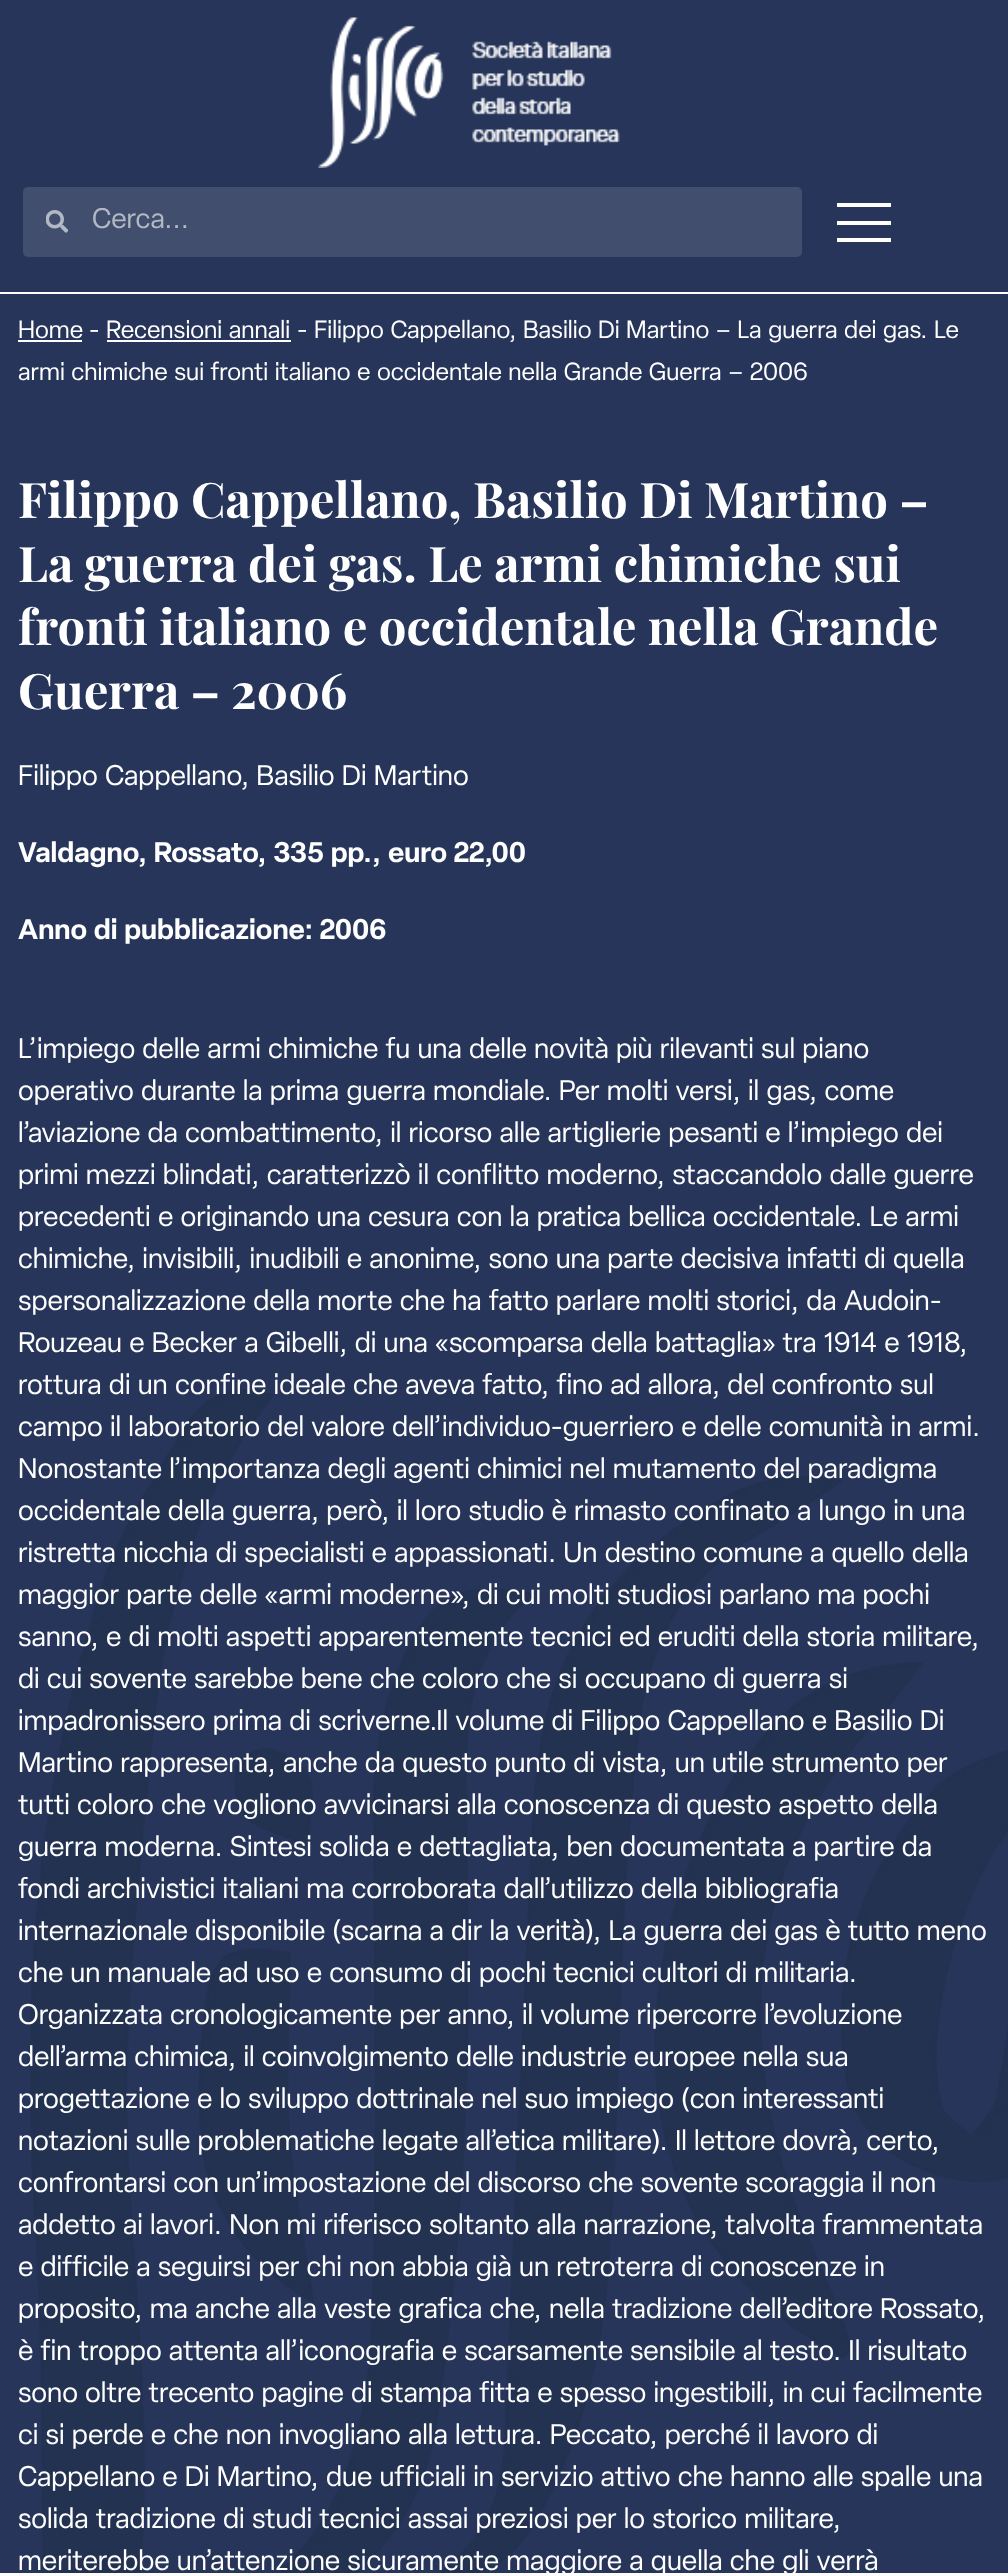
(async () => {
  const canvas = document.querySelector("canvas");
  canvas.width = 1008;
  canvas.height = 2573;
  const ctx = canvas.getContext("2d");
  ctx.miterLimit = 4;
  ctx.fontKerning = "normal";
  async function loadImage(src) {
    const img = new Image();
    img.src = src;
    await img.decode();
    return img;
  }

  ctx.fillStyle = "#263559";
  ctx.fillRect(0, 0, 1008, 2573);
  ctx.drawImage(await loadImage("img/1.png"), 30, 1389, 978, 1184);
  ctx.fillStyle = "#ffffff";
  ctx.fillRect(0, 292, 1008, 2);
  ctx.drawImage(await loadImage("img/2.png"), 318, 17, 302, 151);
  ctx.fillStyle = "#414e6e";
  ctx.beginPath();
  ctx.roundRect(23, 187, 779, 70, 5);
  ctx.fill();
  ctx.drawImage(await loadImage("img/3.png"), 46, 210, 22, 23);
  for (const [x, y, w, h, color] of [
    [837, 221, 54, 4, "#ffffff"],
    [837, 203, 54, 4, "#ffffff"],
    [837, 238, 54, 4, "#ffffff"],
    [18, 340, 64, 2, "#ffffff"],
    [107, 340, 184, 2, "#ffffff"],
  ]) {
    ctx.fillStyle = color;
    ctx.fillRect(x, y, w, h);
  }
  ctx.save();
  ctx.beginPath();
  ctx.rect(91, 208, 660, 28);
  ctx.clip();
  ctx.font = "28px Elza";
  ctx.fillStyle = "#b3b8c5";
  ctx.fillText("Cerca...", 92, 228);
  ctx.restore();
  ctx.font = "24.5px Elza";
  ctx.fillText("Home", 18, 338);
  ctx.fillText("-", 89, 338);
  ctx.wordSpacing = "1.75px";
  ctx.fillText("Recensioni annali", 106, 338);
  ctx.wordSpacing = "0px";
  ctx.fillText("-", 297, 338);
  ctx.wordSpacing = "1.75px";
  ctx.fillText("Filippo Cappellano, Basilio Di Martino – La guerra dei gas. Le", 314, 338);
  ctx.fillText("armi chimiche sui fronti italiano e occidentale nella Grande Guerra – 2006", 18, 380);
  ctx.wordSpacing = "0px";
  ctx.font = "bold 49px Playfair Display";
  for (const [text, x, y] of [
    ["Filippo Cappellano, Basilio Di Martino –", 18, 518],
    ["La guerra dei gas. Le armi chimiche sui", 18, 582],
    ["fronti italiano e occidentale nella Grande", 18, 645],
    ["Guerra – 2006", 18, 709],
  ]) {
    ctx.fillText(text, x, y);
  }
  ctx.wordSpacing = "1.75px";
  ctx.font = "28px Elza";
  ctx.fillText("Filippo Cappellano, Basilio Di Martino", 18, 785);
  ctx.font = "600 28px Elza";
  ctx.fillText("Valdagno, Rossato, 335 pp., euro 22,00", 18, 862);
  ctx.fillText("Anno di pubblicazione: 2006", 18, 939);
  ctx.font = "28px Elza";
  for (const [text, x, y] of [
    ["L’impiego delle armi chimiche fu una delle novità più rilevanti sul piano", 18, 1058],
    ["operativo durante la prima guerra mondiale. Per molti versi, il gas, come", 18, 1100],
    ["l’aviazione da combattimento, il ricorso alle artiglierie pesanti e l’impiego dei", 18, 1142],
    ["primi mezzi blindati, caratterizzò il conflitto moderno, staccandolo dalle guerre", 18, 1184],
    ["precedenti e originando una cesura con la pratica bellica occidentale. Le armi", 18, 1226],
    ["chimiche, invisibili, inudibili e anonime, sono una parte decisiva infatti di quella", 18, 1268],
    ["spersonalizzazione della morte che ha fatto parlare molti storici, da Audoin-", 18, 1310],
    ["Rouzeau e Becker a Gibelli, di una «scomparsa della battaglia» tra 1914 e 1918,", 18, 1352],
    ["rottura di un confine ideale che aveva fatto, fino ad allora, del confronto sul", 18, 1394],
    ["campo il laboratorio del valore dell’individuo-guerriero e delle comunità in armi.", 18, 1436],
    ["Nonostante l’importanza degli agenti chimici nel mutamento del paradigma", 18, 1478],
    ["occidentale della guerra, però, il loro studio è rimasto confinato a lungo in una", 18, 1520],
    ["ristretta nicchia di specialisti e appassionati. Un destino comune a quello della", 18, 1562],
    ["maggior parte delle «armi moderne», di cui molti studiosi parlano ma pochi", 18, 1604],
    ["sanno, e di molti aspetti apparentemente tecnici ed eruditi della storia militare,", 18, 1646],
    ["di cui sovente sarebbe bene che coloro che si occupano di guerra si", 18, 1688],
    ["impadronissero prima di scriverne.Il volume di Filippo Cappellano e Basilio Di", 18, 1730],
    ["Martino rappresenta, anche da questo punto di vista, un utile strumento per", 18, 1772],
    ["tutti coloro che vogliono avvicinarsi alla conoscenza di questo aspetto della", 18, 1814],
    ["guerra moderna. Sintesi solida e dettagliata, ben documentata a partire da", 18, 1856],
    ["fondi archivistici italiani ma corroborata dall’utilizzo della bibliografia", 18, 1898],
    ["internazionale disponibile (scarna a dir la verità), La guerra dei gas è tutto meno", 18, 1940],
    ["che un manuale ad uso e consumo di pochi tecnici cultori di militaria.", 18, 1982],
    ["Organizzata cronologicamente per anno, il volume ripercorre l’evoluzione", 18, 2024],
    ["dell’arma chimica, il coinvolgimento delle industrie europee nella sua", 18, 2066],
    ["progettazione e lo sviluppo dottrinale nel suo impiego (con interessanti", 18, 2108],
    ["notazioni sulle problematiche legate all’etica militare). Il lettore dovrà, certo,", 18, 2150],
    ["confrontarsi con un’impostazione del discorso che sovente scoraggia il non", 18, 2192],
    ["addetto ai lavori. Non mi riferisco soltanto alla narrazione, talvolta frammentata", 18, 2234],
    ["e difficile a seguirsi per chi non abbia già un retroterra di conoscenze in", 18, 2276],
    ["proposito, ma anche alla veste grafica che, nella tradizione dell’editore Rossato,", 18, 2318],
    ["è fin troppo attenta all’iconografia e scarsamente sensibile al testo. Il risultato", 18, 2360],
    ["sono oltre trecento pagine di stampa fitta e spesso ingestibili, in cui facilmente", 18, 2402],
    ["ci si perde e che non invogliano alla lettura. Peccato, perché il lavoro di", 18, 2444],
    ["Cappellano e Di Martino, due ufficiali in servizio attivo che hanno alle spalle una", 18, 2486],
    ["solida tradizione di studi tecnici assai preziosi per lo storico militare,", 18, 2528],
    ["meriterebbe un’attenzione sicuramente maggiore a quella che gli verrà", 18, 2570],
  ]) {
    ctx.fillText(text, x, y);
  }
})();
